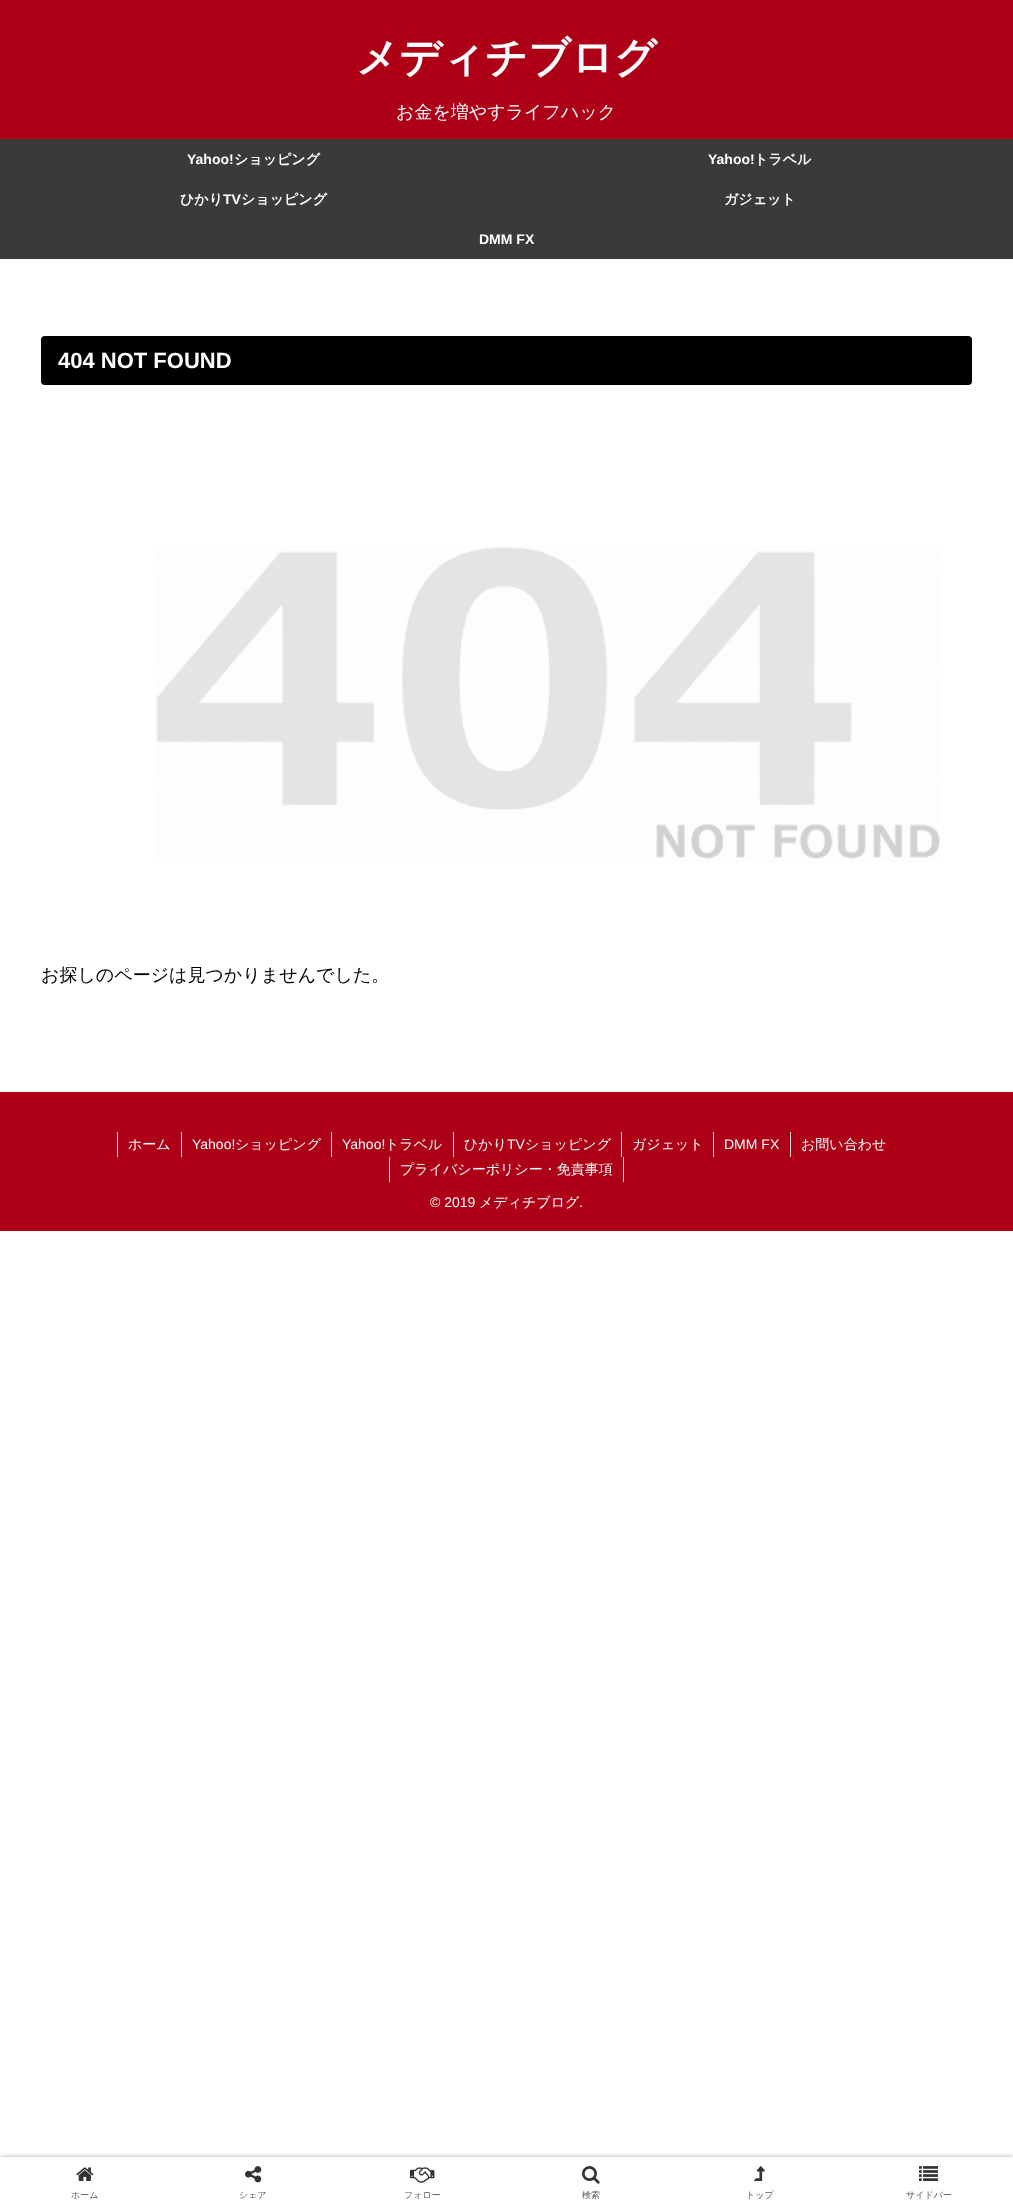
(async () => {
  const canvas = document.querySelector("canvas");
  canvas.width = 1013;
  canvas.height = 2207;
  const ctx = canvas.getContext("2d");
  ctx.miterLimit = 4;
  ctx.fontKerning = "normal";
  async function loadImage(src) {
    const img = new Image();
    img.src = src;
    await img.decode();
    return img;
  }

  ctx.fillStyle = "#ffffff";
  ctx.fillRect(0, 0, 1013, 2207);
  ctx.fillStyle = "#ad0017";
  ctx.fillRect(0, 0, 1013, 139);
  ctx.fillStyle = "#3a3a3a";
  ctx.fillRect(0, 139, 1013, 120);
  ctx.fillStyle = "#000000";
  ctx.beginPath();
  ctx.roundRect(41, 336, 931, 49, 4);
  ctx.fill();
  ctx.drawImage(await loadImage("img/1.png"), 155, 546, 785, 316);
  for (const [x, y, w, h, color] of [
    [0, 1092, 1013, 139, "#ad0017"],
    [117, 1132, 1, 25, "#dddddd"],
    [181, 1132, 1, 25, "#dddddd"],
    [331, 1132, 1, 25, "#dddddd"],
    [453, 1132, 1, 25, "#dddddd"],
    [621, 1132, 1, 25, "#dddddd"],
    [713, 1132, 1, 25, "#dddddd"],
    [790, 1132, 1, 25, "#dddddd"],
    [623, 1157, 1, 25, "#dddddd"],
    [389, 1157, 1, 25, "#dddddd"],
  ]) {
    ctx.fillStyle = color;
    ctx.fillRect(x, y, w, h);
  }
  ctx.save();
  ctx.beginPath();
  ctx.rect(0, 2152, 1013, 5);
  ctx.clip();
  ctx.fillStyle = "#a9a9a9";
  ctx.filter = "blur(2.5px)";
  ctx.beginPath();
  ctx.rect(0, 2157, 1013, 50);
  ctx.fill();
  ctx.filter = "none";
  ctx.restore();
  ctx.drawImage(await loadImage("img/2.png"), 76, 2167, 18, 14);
  ctx.drawImage(await loadImage("img/3.png"), 245, 2166, 17, 17);
  ctx.drawImage(await loadImage("img/4.png"), 410, 2167, 25, 16);
  ctx.drawImage(await loadImage("img/5.png"), 582, 2166, 18, 18);
  ctx.drawImage(await loadImage("img/6.png"), 754, 2166, 11, 15);
  ctx.drawImage(await loadImage("img/7.png"), 919, 2166, 19, 15);
  ctx.font = "bold 42px WenQuanYi Zen Hei";
  ctx.fillStyle = "#ffffff";
  ctx.fillText("メディチブログ", 356, 72);
  ctx.font = "500 18px WenQuanYi Zen Hei";
  ctx.fillText("お金を増やすライフハック", 396, 118);
  ctx.font = "bold 14px Liberation Sans";
  ctx.fillText("Yahoo!", 187, 164);
  ctx.font = "bold 14px WenQuanYi Zen Hei";
  ctx.fillText("ショッピング", 234, 164);
  ctx.font = "bold 14px Liberation Sans";
  ctx.fillText("Yahoo!", 708, 164);
  ctx.font = "bold 14px WenQuanYi Zen Hei";
  ctx.fillText("トラベル", 754, 164);
  ctx.fillText("ひかり", 180, 204);
  ctx.font = "bold 14px Liberation Sans";
  ctx.fillText("TV", 223, 204);
  ctx.font = "bold 14px WenQuanYi Zen Hei";
  ctx.fillText("ショッピング", 241, 204);
  ctx.fillText("ガジェット", 724, 204);
  ctx.font = "bold 14px Liberation Sans";
  ctx.fillText("DMM FX", 479, 244);
  ctx.font = "bold 22px Liberation Sans";
  ctx.fillText("404 NOT FOUND", 58, 368);
  ctx.font = "500 18px WenQuanYi Zen Hei";
  ctx.fillStyle = "#000000";
  ctx.fillText("お探しのページは見つかりませんでした。", 41, 981);
  ctx.font = "500 14px WenQuanYi Zen Hei";
  ctx.fillStyle = "#ffffff";
  ctx.fillText("ホーム", 128, 1149);
  ctx.font = "14px Liberation Sans";
  ctx.fillText("Yahoo!", 192, 1149);
  ctx.font = "500 14px WenQuanYi Zen Hei";
  ctx.fillText("ショッピング", 235, 1149);
  ctx.font = "14px Liberation Sans";
  ctx.fillText("Yahoo!", 342, 1149);
  ctx.font = "500 14px WenQuanYi Zen Hei";
  ctx.fillText("トラベル", 385, 1149);
  ctx.fillText("ひかり", 464, 1149);
  ctx.font = "14px Liberation Sans";
  ctx.fillText("TV", 507, 1149);
  ctx.font = "500 14px WenQuanYi Zen Hei";
  ctx.fillText("ショッピング", 525, 1149);
  ctx.fillText("ガジェット", 632, 1149);
  ctx.font = "14px Liberation Sans";
  ctx.fillText("DMM FX", 724, 1149);
  ctx.font = "500 14px WenQuanYi Zen Hei";
  ctx.fillText("お問い合わせ", 801, 1149);
  ctx.fillText("プライバシーポリシー・免責事項", 400, 1174);
  ctx.font = "14px Liberation Sans";
  ctx.fillText("© 2019", 430, 1207);
  ctx.font = "500 14px WenQuanYi Zen Hei";
  ctx.fillText("メディチブログ", 479, 1207);
  ctx.font = "14px Liberation Sans";
  ctx.fillText(".", 579, 1207);
  ctx.font = "500 9px WenQuanYi Zen Hei";
  ctx.fillStyle = "#5c5c5c";
  for (const [text, x, y] of [
    ["ホーム", 71, 2198],
    ["シェア", 239, 2198],
    ["フォロー", 404, 2198],
    ["検索", 582, 2198],
    ["トップ", 746, 2198],
    ["サイドバー", 906, 2198],
  ]) {
    ctx.fillText(text, x, y);
  }
})();
